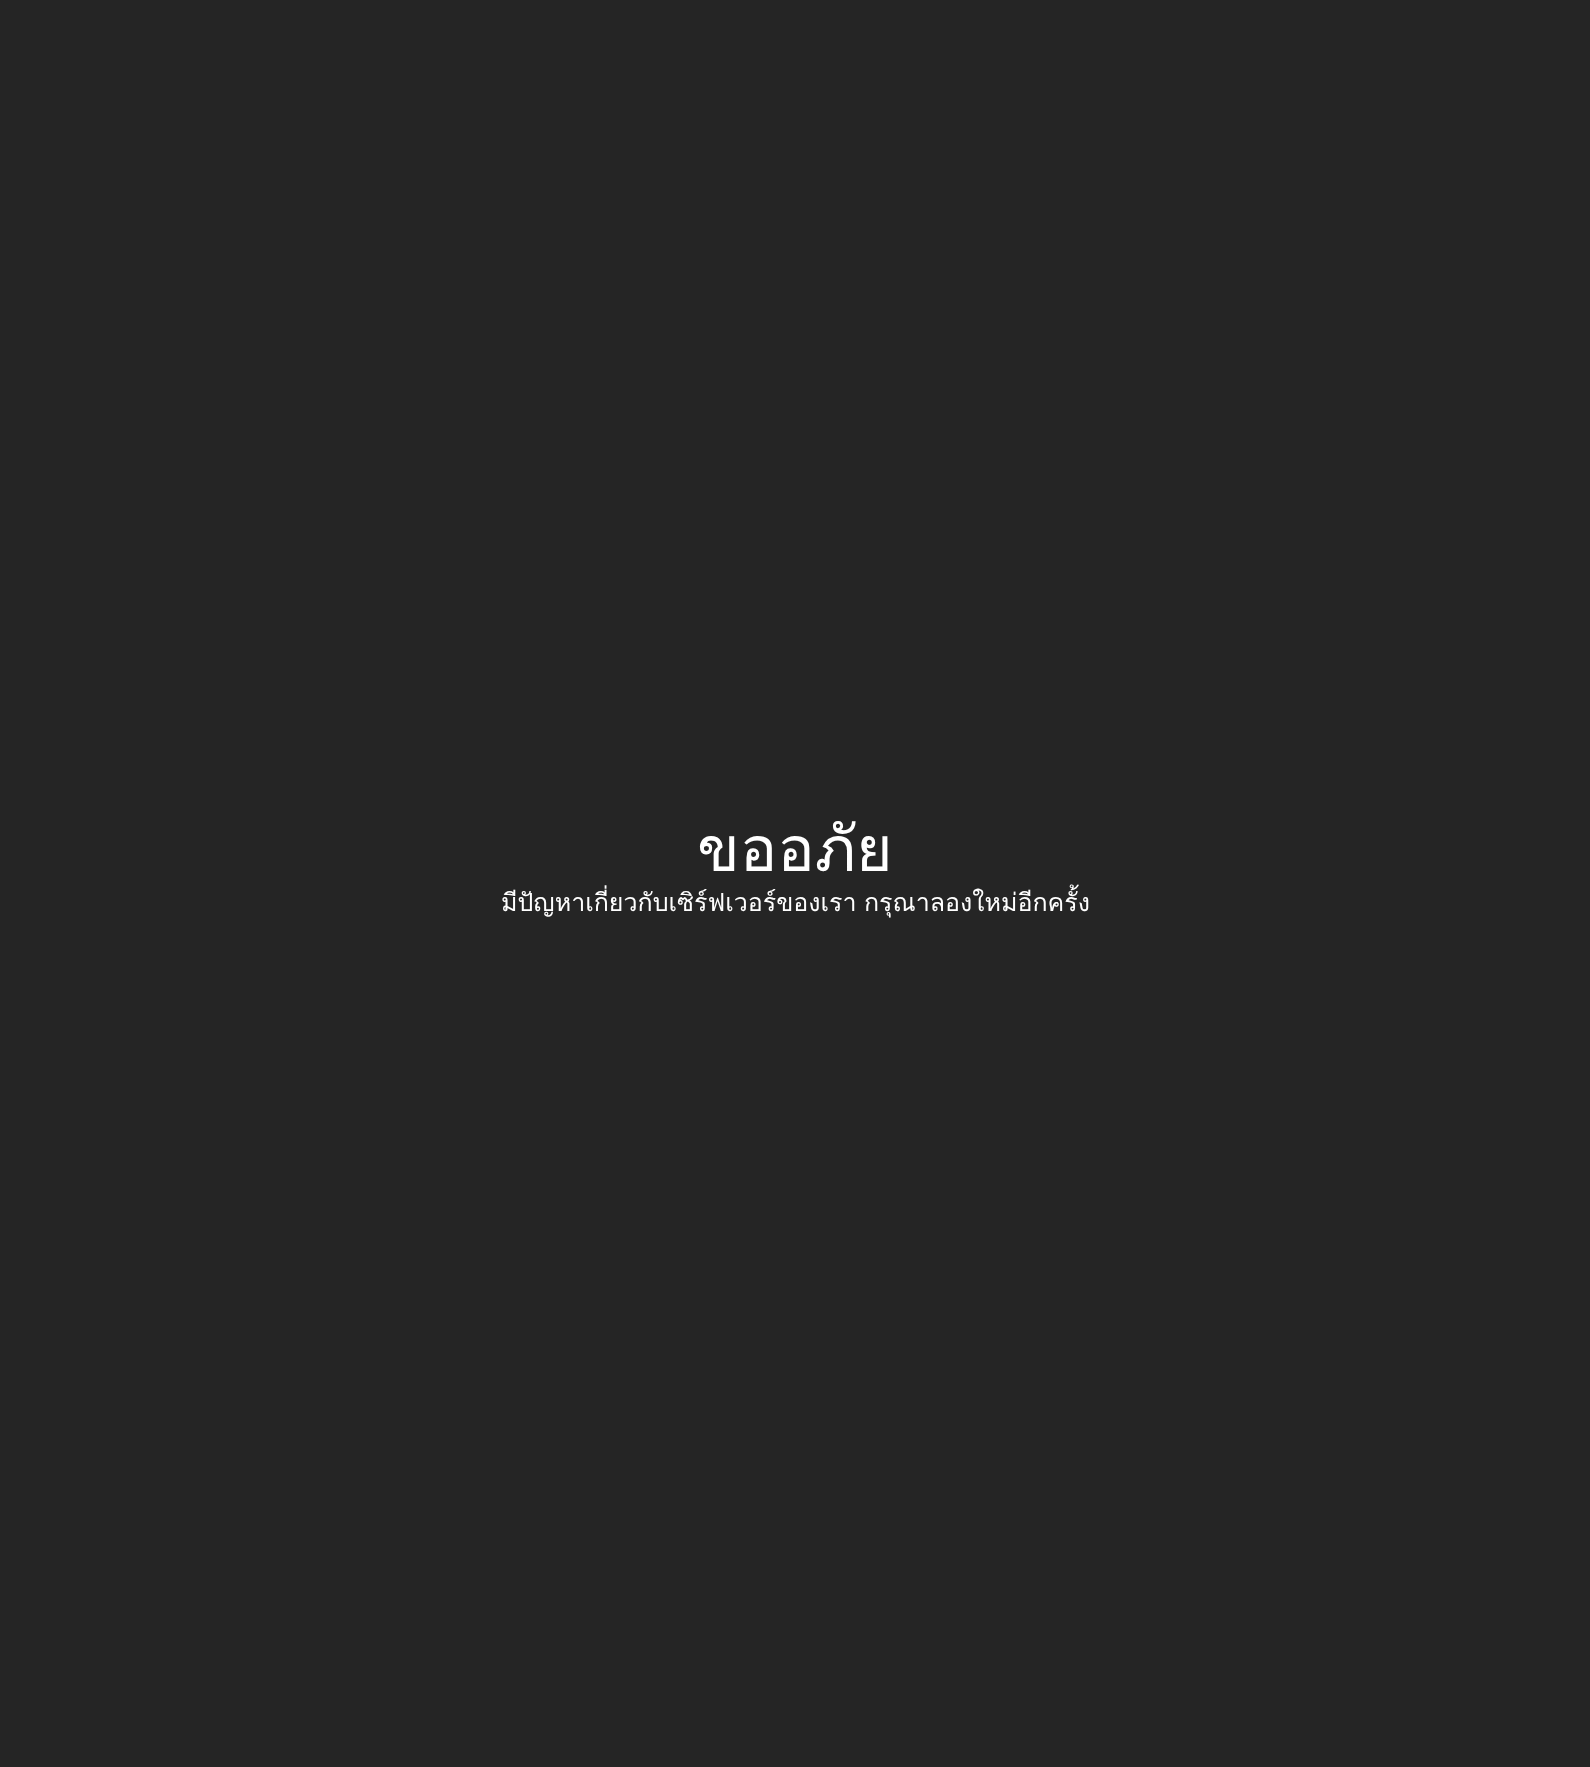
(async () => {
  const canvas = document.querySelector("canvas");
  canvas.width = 1590;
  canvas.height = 1767;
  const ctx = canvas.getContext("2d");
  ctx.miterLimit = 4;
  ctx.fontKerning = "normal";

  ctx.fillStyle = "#252525";
  ctx.fillRect(0, 0, 1590, 1767);
  ctx.font = "62.5px Loma";
  ctx.fillStyle = "#ffffff";
  ctx.fillText("ขออภัย", 697, 871);
  ctx.wordSpacing = "-1px";
  ctx.font = "25px Loma";
  ctx.fillText("มีปัญหาเกี่ยวกับเซิร์ฟเวอร์ของเรา กรุณาลองใหม่อีกครั้ง", 501, 911);
})();
